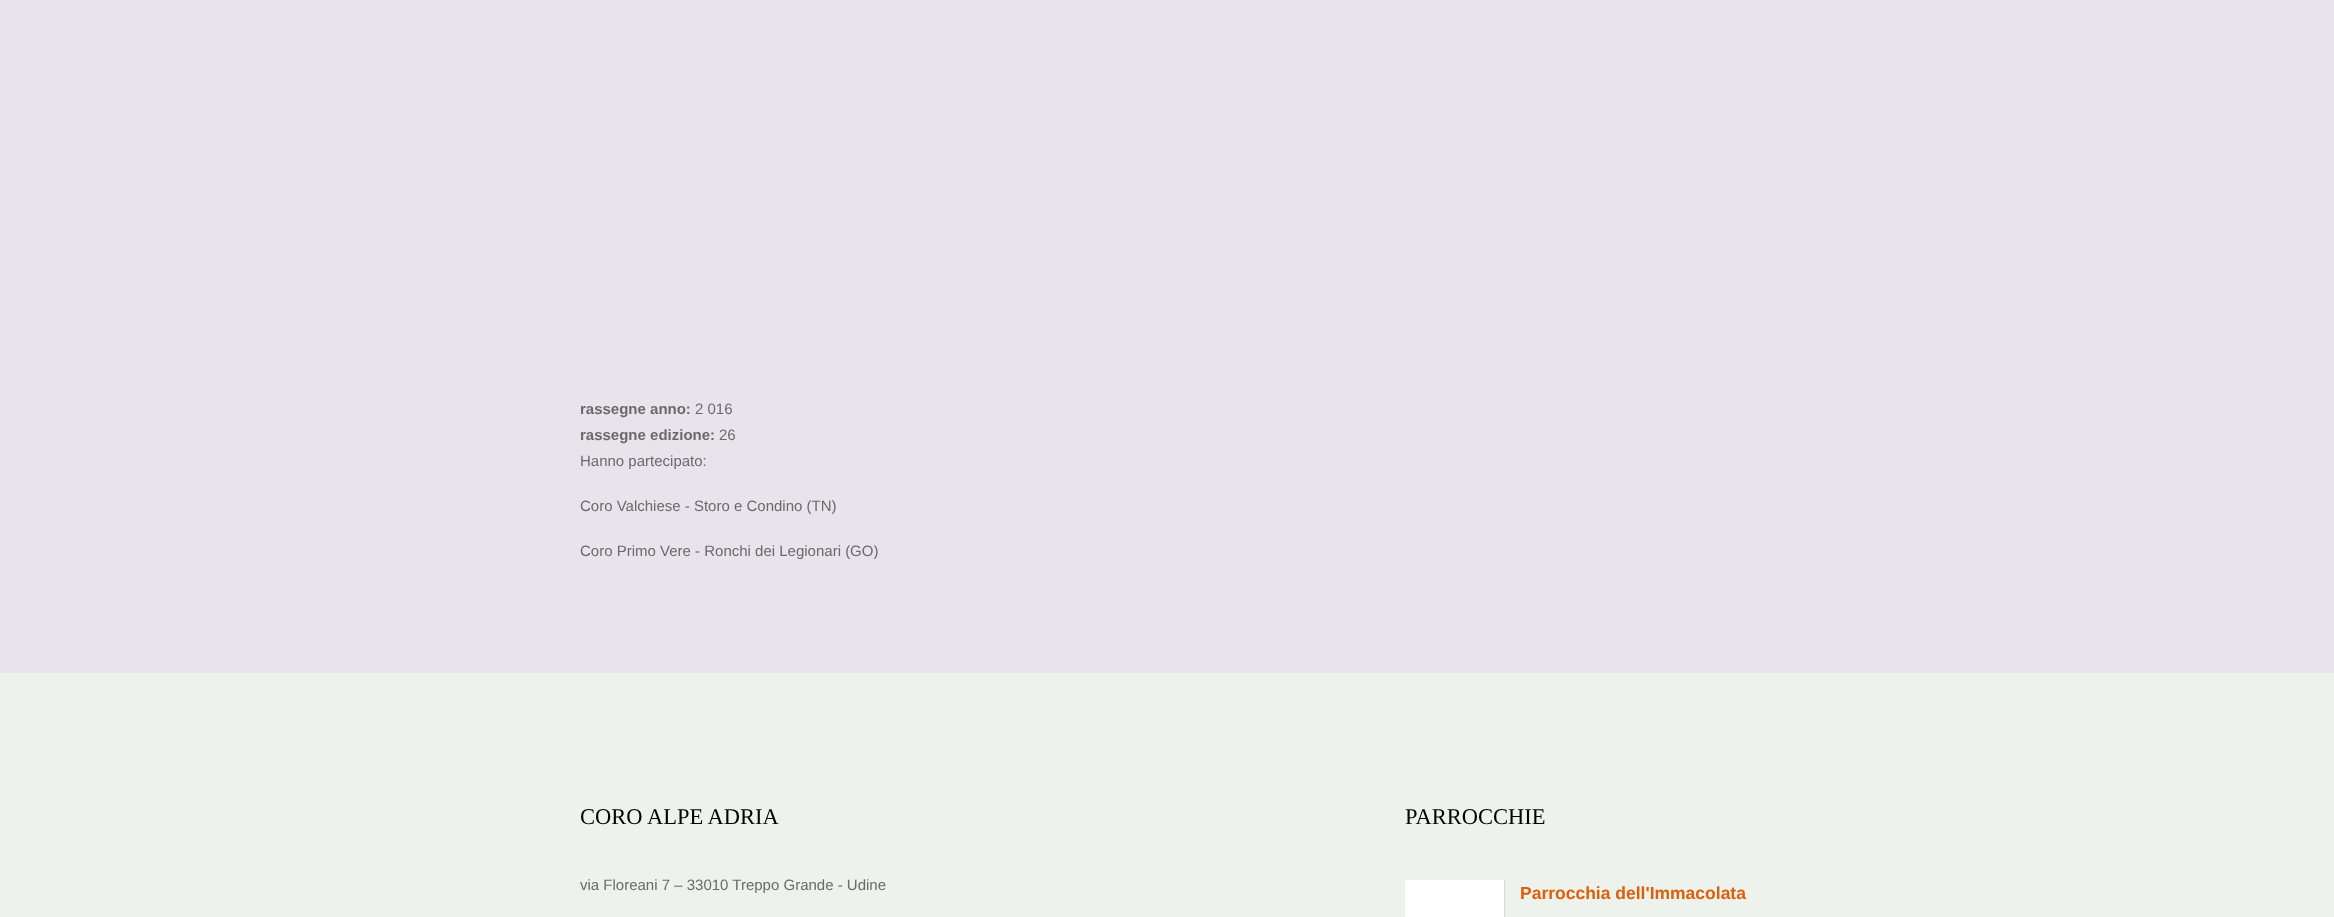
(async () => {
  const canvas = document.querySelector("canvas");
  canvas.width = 2334;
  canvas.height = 917;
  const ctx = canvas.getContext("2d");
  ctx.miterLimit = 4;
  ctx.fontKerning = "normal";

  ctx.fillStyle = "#edf2ed";
  ctx.fillRect(0, 0, 2334, 917);
  for (const [x, y, w, h, color] of [
    [0, 0, 2334, 673, "#e9e4ec"],
    [1405, 880, 99, 37, "#ffffff"],
    [1504, 880, 1, 37, "#d7d8da"],
  ]) {
    ctx.fillStyle = color;
    ctx.fillRect(x, y, w, h);
  }
  ctx.font = "bold 15px Liberation Sans";
  ctx.fillStyle = "#6a6a6a";
  ctx.fillText("rassegne anno:", 580, 414);
  ctx.font = "15px Liberation Sans";
  ctx.fillText("2 016", 695, 414);
  ctx.font = "bold 15px Liberation Sans";
  ctx.fillText("rassegne edizione:", 580, 440);
  ctx.font = "15px Liberation Sans";
  for (const [text, x, y] of [
    ["26", 719, 440],
    ["Hanno partecipato:", 580, 466],
    ["Coro Valchiese - Storo e Condino (TN)", 580, 511],
    ["Coro Primo Vere - Ronchi dei Legionari (GO)", 580, 556],
  ]) {
    ctx.fillText(text, x, y);
  }
  ctx.font = "22.5px Liberation Serif";
  ctx.fillStyle = "#000000";
  ctx.fillText("CORO ALPE ADRIA", 580, 824);
  ctx.font = "15px Liberation Sans";
  ctx.fillStyle = "#6a6a6a";
  ctx.fillText("via Floreani 7 – 33010 Treppo Grande - Udine", 580, 890);
  ctx.font = "22.5px Liberation Serif";
  ctx.fillStyle = "#000000";
  ctx.fillText("PARROCCHIE", 1405, 824);
  ctx.font = "bold 17.5px Liberation Sans";
  ctx.fillStyle = "#de5f0a";
  ctx.fillText("Parrocchia dell'Immacolata", 1520, 899);
})();
